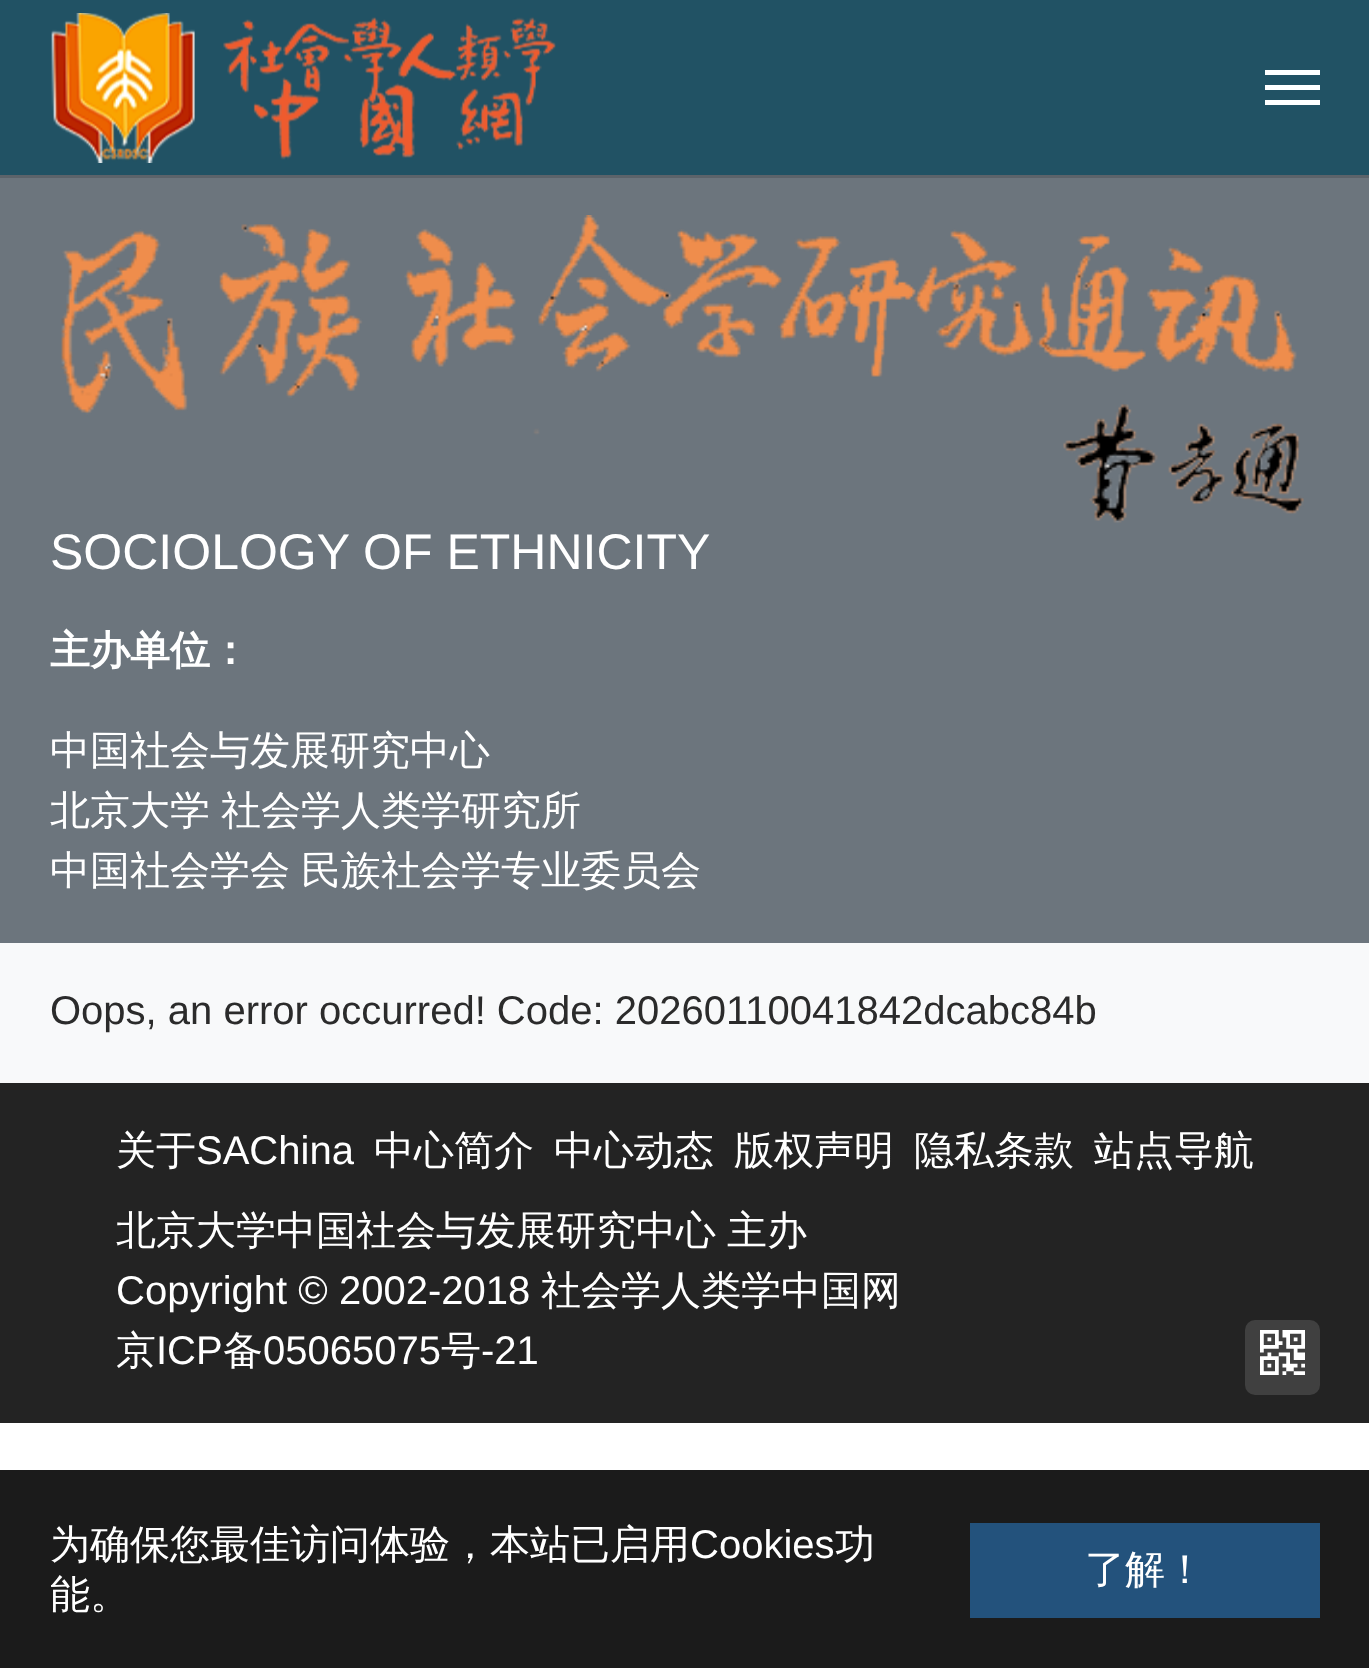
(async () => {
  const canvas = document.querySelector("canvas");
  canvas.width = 1369;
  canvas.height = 1668;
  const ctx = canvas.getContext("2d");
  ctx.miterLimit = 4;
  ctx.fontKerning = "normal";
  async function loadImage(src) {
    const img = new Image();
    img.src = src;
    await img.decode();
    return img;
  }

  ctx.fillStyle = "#ffffff";
  ctx.fillRect(0, 0, 1369, 1668);
  ctx.fillStyle = "#5c636a";
  ctx.fillRect(0, 175, 1369, 3);
  ctx.fillStyle = "#215264";
  ctx.fillRect(0, 0, 1369, 175);
  ctx.drawImage(await loadImage("img/1.png"), 51, 13, 505, 150);
  for (const [x, y, w, h, color] of [
    [1265, 85, 55, 5, "#ffffff"],
    [1265, 70, 55, 5, "#ffffff"],
    [1265, 100, 55, 5, "#ffffff"],
    [0, 178, 1369, 765, "#6c757d"],
  ]) {
    ctx.fillStyle = color;
    ctx.fillRect(x, y, w, h);
  }
  ctx.drawImage(await loadImage("img/2.png"), 61, 215, 1243, 308);
  ctx.fillStyle = "#f8f9fa";
  ctx.fillRect(0, 943, 1369, 140);
  ctx.fillStyle = "#232323";
  ctx.fillRect(0, 1083, 1369, 340);
  ctx.fillStyle = "#404040";
  ctx.beginPath();
  ctx.roundRect(1245, 1320, 75, 75, 10);
  ctx.fill();
  ctx.drawImage(await loadImage("img/3.png"), 1260, 1330, 45, 45);
  ctx.fillStyle = "#1b1b1b";
  ctx.fillRect(0, 1470, 1369, 198);
  ctx.fillStyle = "#23527c";
  ctx.fillRect(970, 1523, 350, 95);
  ctx.font = "50px Liberation Sans";
  ctx.fillStyle = "#ffffff";
  ctx.fillText("SOCIOLOGY OF ETHNICITY", 50, 569);
  ctx.font = "bold 40px WenQuanYi Zen Hei";
  ctx.fillText("主办单位：", 50, 664);
  ctx.font = "500 40px WenQuanYi Zen Hei";
  ctx.fillText("中国社会与发展研究中心", 50, 764);
  ctx.wordSpacing = "-1px";
  ctx.fillText("北京大学 社会学人类学研究所", 50, 824);
  ctx.fillText("中国社会学会 民族社会学专业委员会", 50, 884);
  ctx.wordSpacing = "0px";
  ctx.font = "40px Liberation Sans";
  ctx.fillStyle = "#2b2b2b";
  ctx.fillText("Oops, an error occurred! Code: 20260110041842dcabc84b", 50, 1024);
  ctx.font = "500 40px WenQuanYi Zen Hei";
  ctx.fillStyle = "#ffffff";
  ctx.fillText("关于", 116, 1164);
  ctx.font = "40px Liberation Sans";
  ctx.fillText("SAChina", 196, 1164);
  ctx.font = "500 40px WenQuanYi Zen Hei";
  for (const [text, x, y] of [
    ["中心简介", 374, 1164],
    ["中心动态", 554, 1164],
    ["版权声明", 734, 1164],
    ["隐私条款", 914, 1164],
    ["站点导航", 1094, 1164],
  ]) {
    ctx.fillText(text, x, y);
  }
  ctx.wordSpacing = "-1px";
  ctx.fillText("北京大学中国社会与发展研究中心 主办", 116, 1244);
  ctx.wordSpacing = "0px";
  ctx.font = "40px Liberation Sans";
  ctx.fillText("Copyright © 2002-2018", 116, 1304);
  ctx.font = "500 40px WenQuanYi Zen Hei";
  ctx.fillText("社会学人类学中国网", 541, 1304);
  ctx.fillText("京", 116, 1364);
  ctx.font = "40px Liberation Sans";
  ctx.fillText("ICP", 156, 1364);
  ctx.font = "500 40px WenQuanYi Zen Hei";
  ctx.fillText("备", 223, 1364);
  ctx.font = "40px Liberation Sans";
  ctx.fillText("05065075", 263, 1364);
  ctx.font = "500 40px WenQuanYi Zen Hei";
  ctx.fillText("号", 441, 1364);
  ctx.font = "40px Liberation Sans";
  ctx.fillText("-21", 481, 1364);
  ctx.font = "500 40px WenQuanYi Zen Hei";
  ctx.fillText("为确保您最佳访问体验，本站已启用", 50, 1558);
  ctx.font = "40px Liberation Sans";
  ctx.fillText("Cookies", 690, 1558);
  ctx.font = "500 40px WenQuanYi Zen Hei";
  for (const [text, x, y] of [
    ["功", 835, 1558],
    ["能。", 50, 1608],
    ["了解！", 1085, 1583],
  ]) {
    ctx.fillText(text, x, y);
  }
})();
